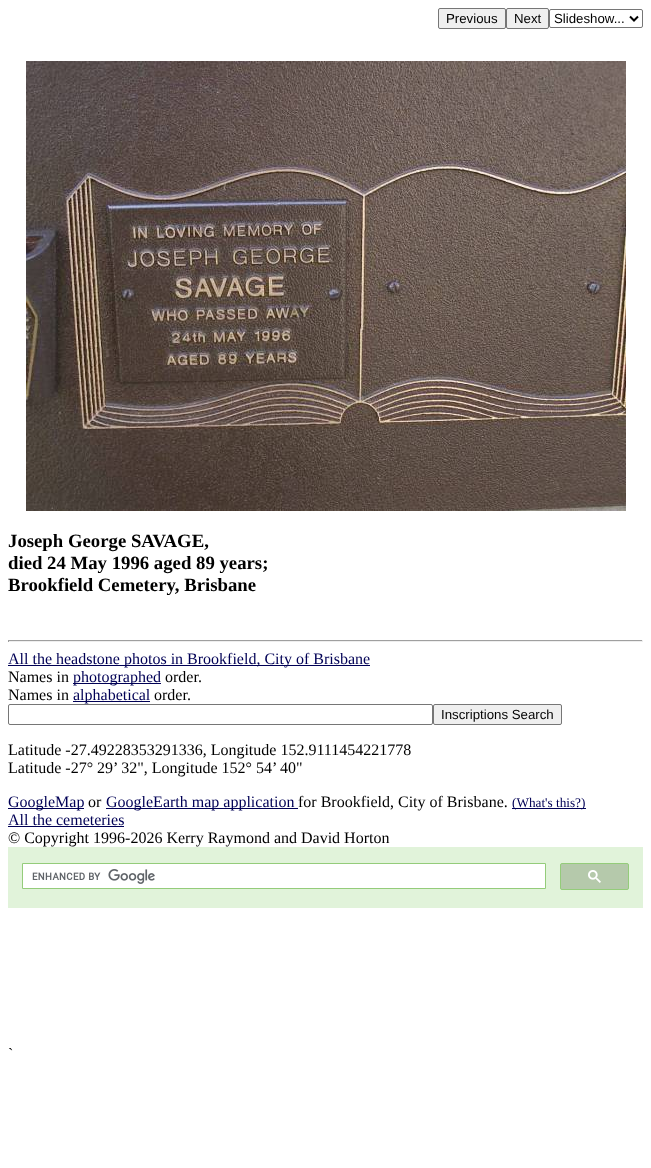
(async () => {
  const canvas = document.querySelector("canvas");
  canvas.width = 651;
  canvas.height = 1168;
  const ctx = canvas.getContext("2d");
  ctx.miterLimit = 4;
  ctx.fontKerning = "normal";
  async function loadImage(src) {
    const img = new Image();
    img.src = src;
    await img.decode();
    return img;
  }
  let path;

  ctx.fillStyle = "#ffffff";
  ctx.fillRect(0, 0, 651, 1168);
  ctx.fillStyle = "#efefef";
  ctx.beginPath();
  ctx.roundRect(438.5, 8.5, 67, 20, 1.5);
  ctx.fill();
  ctx.strokeStyle = "#767676";
  ctx.stroke();
  ctx.beginPath();
  ctx.roundRect(506.5, 8.5, 42, 20, 1.5);
  ctx.fill();
  ctx.stroke();
  ctx.beginPath();
  ctx.roundRect(549.5, 9.5, 93, 18, 1.5);
  ctx.stroke();
  path = new Path2D("M630 16.5L634 20.5L638 16.5");
  ctx.strokeStyle = "#000000";
  ctx.lineWidth = 2;
  ctx.stroke(path);
  ctx.drawImage(await loadImage("img/1.png"), 26, 61, 600, 450);
  for (const [x, y, w, h, color] of [
    [8, 640, 635, 1, "#9f9f9f"],
    [642, 640, 1, 2, "#eeeeee"],
    [8, 641, 635, 1, "#eeeeee"],
    [8, 640, 1, 2, "#9f9f9f"],
    [8, 665, 362, 1, "#000055"],
    [73, 683, 88, 1, "#000055"],
    [73, 701, 77, 1, "#000055"],
  ]) {
    ctx.fillStyle = color;
    ctx.fillRect(x, y, w, h);
  }
  ctx.beginPath();
  ctx.roundRect(8.5, 704.5, 424, 20, 1.5);
  ctx.strokeStyle = "#767676";
  ctx.lineWidth = 1;
  ctx.stroke();
  ctx.fillStyle = "#efefef";
  ctx.beginPath();
  ctx.roundRect(433.5, 704.5, 128, 20, 1.5);
  ctx.fill();
  ctx.stroke();
  for (const [x, y, w, h, color] of [
    [8, 808, 76, 1, "#000055"],
    [106, 808, 192, 1, "#000055"],
    [512, 808, 74, 1, "#000055"],
    [8, 826, 116, 1, "#000055"],
    [8, 847, 635, 61, "#e1f3da"],
  ]) {
    ctx.fillStyle = color;
    ctx.fillRect(x, y, w, h);
  }
  ctx.fillStyle = "#ffffff";
  ctx.beginPath();
  ctx.rect(22.5, 863.5, 523, 25);
  ctx.fill();
  ctx.strokeStyle = "#94cc7a";
  ctx.stroke();
  ctx.drawImage(await loadImage("img/2.png"), 32, 869, 123, 15);
  ctx.fillStyle = "#b5c9ab";
  ctx.beginPath();
  ctx.roundRect(560.5, 863.5, 68, 26, 1.5);
  ctx.fill();
  ctx.stroke();
  ctx.drawImage(await loadImage("img/3.png"), 588, 870, 13, 13);
  ctx.font = "13.25px Liberation Sans";
  ctx.fillStyle = "#000000";
  for (const [text, x, y] of [
    ["Previous", 446, 23],
    ["Next", 514, 23],
    ["Slideshow...", 554, 23],
  ]) {
    ctx.fillText(text, x, y);
  }
  ctx.font = "bold 18.75px Liberation Serif";
  for (const [text, x, y] of [
    ["Joseph George SAVAGE,", 8, 547],
    ["died 24 May 1996 aged 89 years;", 8, 569],
    ["Brookfield Cemetery, Brisbane", 8, 591],
  ]) {
    ctx.fillText(text, x, y);
  }
  ctx.font = "16px Liberation Serif";
  ctx.fillStyle = "#000055";
  ctx.fillText("All the headstone photos in Brookfield, City of Brisbane", 8, 664);
  ctx.fillStyle = "#000000";
  ctx.fillText("Names in", 8, 682);
  ctx.fillStyle = "#000055";
  ctx.fillText("photographed", 73, 682);
  ctx.fillStyle = "#000000";
  ctx.fillText("order.", 165, 682);
  ctx.fillText("Names in", 8, 700);
  ctx.fillStyle = "#000055";
  ctx.fillText("alphabetical", 73, 700);
  ctx.fillStyle = "#000000";
  ctx.fillText("order.", 154, 700);
  ctx.font = "13.25px Liberation Sans";
  ctx.fillText("Inscriptions Search", 441, 719);
  ctx.font = "16px Liberation Serif";
  ctx.fillText("Latitude -27.49228353291336, Longitude 152.9111454221778", 8, 755);
  ctx.fillText("Latitude -27° 29’ 32\", Longitude 152° 54’ 40\"", 8, 773);
  ctx.fillStyle = "#000055";
  ctx.fillText("GoogleMap", 8, 807);
  ctx.fillStyle = "#000000";
  ctx.fillText("or", 88, 807);
  ctx.fillStyle = "#000055";
  ctx.fillText("GoogleEarth map application", 106, 807);
  ctx.fillStyle = "#000000";
  ctx.fillText("for Brookfield, City of Brisbane.", 298, 807);
  ctx.font = "13.25px Liberation Serif";
  ctx.fillStyle = "#000055";
  ctx.fillText("(What's this?)", 512, 807);
  ctx.font = "16px Liberation Serif";
  ctx.fillText("All the cemeteries", 8, 825);
  ctx.fillStyle = "#000000";
  ctx.fillText("© Copyright 1996-2026 Kerry Raymond and David Horton", 8, 843);
  ctx.fillText("`", 8, 1059);
})();
